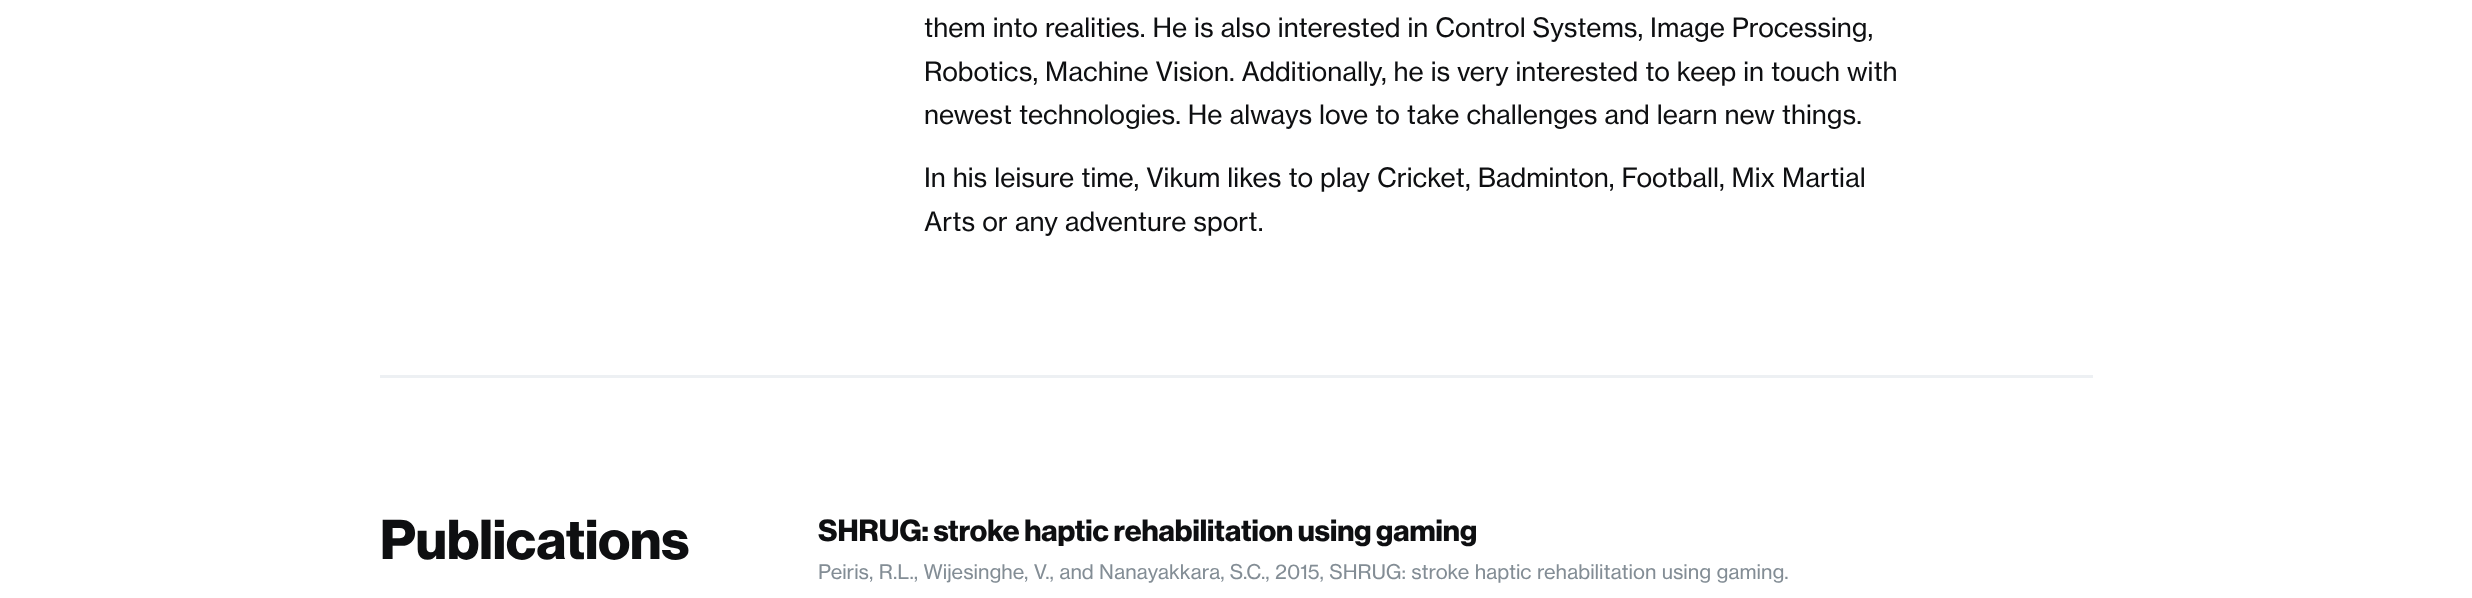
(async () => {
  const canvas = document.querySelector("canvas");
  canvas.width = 2472;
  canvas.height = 598;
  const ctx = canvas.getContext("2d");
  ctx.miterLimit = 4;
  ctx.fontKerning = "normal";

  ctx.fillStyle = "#ffffff";
  ctx.fillRect(0, 0, 2472, 598);
  ctx.fillStyle = "#edf0f3";
  ctx.fillRect(380, 375, 1713, 3);
  ctx.font = "26.25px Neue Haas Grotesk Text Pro";
  ctx.fillStyle = "#0e0f11";
  for (const [text, x, y] of [
    ["them into realities. He is also interested in Control Systems, Image Processing,", 924, 37],
    ["Robotics, Machine Vision. Additionally, he is very interested to keep in touch with", 924, 81],
    ["newest technologies. He always love to take challenges and learn new things.", 924, 124],
    ["In his leisure time, Vikum likes to play Cricket, Badminton, Football, Mix Martial", 924, 187],
    ["Arts or any adventure sport.", 924, 231],
  ]) {
    ctx.fillText(text, x, y);
  }
  ctx.font = "bold 55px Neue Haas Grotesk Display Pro";
  ctx.fillText("Publications", 380, 559);
  ctx.font = "bold 30px Neue Haas Grotesk Display Pro";
  ctx.fillText("SHRUG: stroke haptic rehabilitation using gaming", 818, 541);
  ctx.font = "20px Neue Haas Grotesk Text Pro";
  ctx.fillStyle = "#838d95";
  ctx.fillText("Peiris, R.L., Wijesinghe, V., and Nanayakkara, S.C., 2015, SHRUG: stroke haptic rehabilitation using gaming.", 818, 579);
})();
